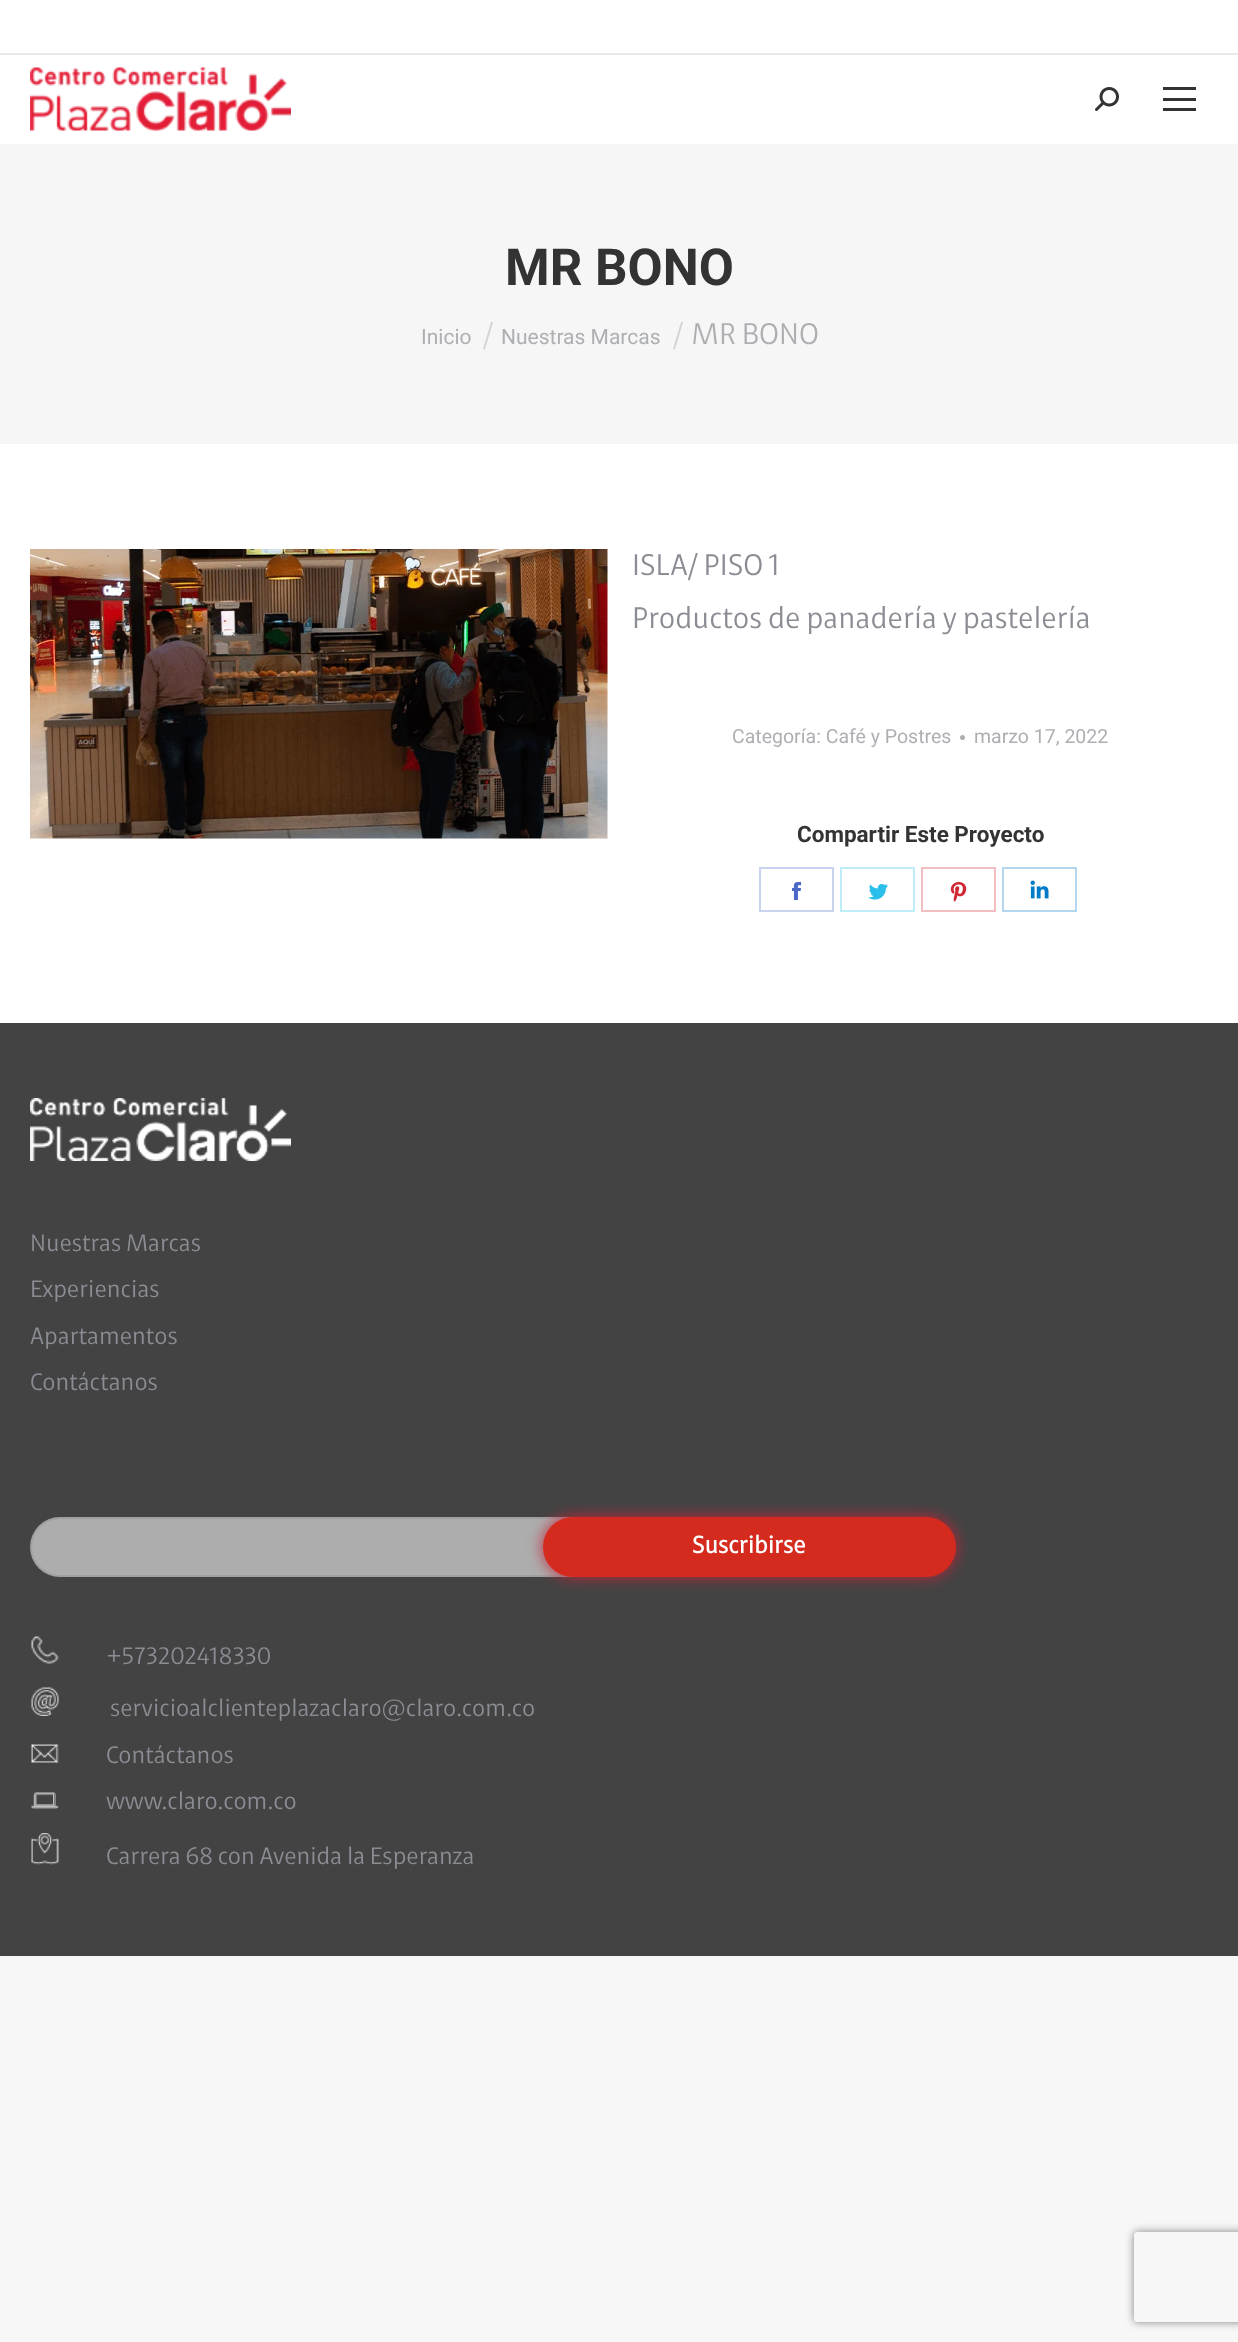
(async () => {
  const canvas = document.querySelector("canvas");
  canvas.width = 1238;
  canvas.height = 2342;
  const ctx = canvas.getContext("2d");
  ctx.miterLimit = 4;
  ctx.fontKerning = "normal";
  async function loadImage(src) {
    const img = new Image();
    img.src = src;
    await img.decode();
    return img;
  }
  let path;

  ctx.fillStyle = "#f7f7f7";
  ctx.fillRect(0, 0, 1238, 2342);
  ctx.fillStyle = "#ffffff";
  ctx.fillRect(0, 0, 1238, 1023);
  ctx.fillStyle = "#e9e9e9";
  ctx.fillRect(0, 53, 1238, 2);
  ctx.drawImage(await loadImage("img/1.png"), 30, 67, 261, 64);
  ctx.drawImage(await loadImage("img/2.png"), 1095, 87, 24, 24);
  for (const [x, y, w, h, color] of [
    [1163, 87, 33, 3, "#333333"],
    [1163, 98, 33, 3, "#333333"],
    [1163, 108, 33, 3, "#333333"],
    [0, 144, 1238, 300, "#f6f6f6"],
  ]) {
    ctx.fillStyle = color;
    ctx.fillRect(x, y, w, h);
  }
  ctx.drawImage(await loadImage("img/3.png"), 30, 549, 578, 290);
  ctx.fillStyle = "#adafb3";
  ctx.beginPath();
  ctx.arc(962.5, 737.5, 2.5, 0, Math.PI * 2);
  ctx.fill();
  ctx.strokeStyle = "#c9d2ee";
  ctx.lineWidth = 2;
  ctx.strokeRect(760, 868, 73, 43);
  ctx.drawImage(await loadImage("img/4.png"), 791, 882, 11, 18);
  ctx.strokeStyle = "#bfecf9";
  ctx.strokeRect(841, 868, 73, 43);
  ctx.drawImage(await loadImage("img/5.png"), 868, 883, 20, 17);
  ctx.strokeStyle = "#f1bfc2";
  ctx.strokeRect(922, 868, 73, 43);
  ctx.drawImage(await loadImage("img/6.png"), 950, 882, 17, 20);
  ctx.strokeStyle = "#b3d7ee";
  ctx.strokeRect(1003, 868, 73, 43);
  ctx.drawImage(await loadImage("img/7.png"), 1030, 880, 19, 19);
  ctx.fillStyle = "#434343";
  ctx.fillRect(0, 1023, 1238, 933);
  ctx.drawImage(await loadImage("img/8.png"), 30, 1098, 261, 63);
  ctx.fillStyle = "#adadad";
  ctx.beginPath();
  ctx.roundRect(30, 1517, 590, 60, [30, 0, 0, 30]);
  ctx.fill();
  ctx.beginPath();
  ctx.roundRect(31, 1518, 588, 58, [29, 0, 0, 29]);
  ctx.strokeStyle = "rgba(51, 51, 51, 0.11)";
  ctx.stroke();
  ctx.fillStyle = "#c32339";
  ctx.filter = "blur(7.5px)";
  ctx.beginPath();
  ctx.roundRect(543, 1517, 413, 60, 30);
  ctx.fill();
  ctx.filter = "none";
  ctx.fillStyle = "#d52b1e";
  ctx.beginPath();
  ctx.roundRect(543, 1517, 413, 60, 30);
  ctx.fill();
  ctx.drawImage(await loadImage("img/9.png"), 31, 1636, 28, 28);
  ctx.drawImage(await loadImage("img/10.png"), 31, 1687, 28, 29);
  ctx.drawImage(await loadImage("img/11.png"), 31, 1744, 28, 19);
  ctx.drawImage(await loadImage("img/12.png"), 31, 1792, 28, 17);
  ctx.drawImage(await loadImage("img/13.png"), 31, 1833, 28, 32);
  ctx.save();
  path = new Path2D("M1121 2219H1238V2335H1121ZM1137 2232H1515C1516.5 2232 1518 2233.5 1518 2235V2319C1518 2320.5 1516.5 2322 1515 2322H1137C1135.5 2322 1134 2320.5 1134 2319V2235C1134 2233.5 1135.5 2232 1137 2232Z");
  ctx.clip(path, "evenodd");
  ctx.fillStyle = "#808080";
  ctx.filter = "blur(4px)";
  ctx.beginPath();
  ctx.roundRect(1134, 2232, 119, 90, 3);
  ctx.fill();
  ctx.filter = "none";
  ctx.restore();
  ctx.font = "bold 51px Roboto";
  ctx.fillStyle = "#333333";
  ctx.fillText("MR BONO", 505, 285);
  ctx.font = "21px Roboto";
  ctx.fillStyle = "#adafb3";
  ctx.fillText("Inicio", 421, 344);
  ctx.font = "30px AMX";
  ctx.fillStyle = "#d2d3d5";
  ctx.fillText("/", 483, 344);
  ctx.font = "21px Roboto";
  ctx.fillStyle = "#adafb3";
  ctx.fillText("Nuestras Marcas", 501, 344);
  ctx.font = "30px AMX";
  ctx.fillStyle = "#d2d3d5";
  ctx.fillText("/", 673, 344);
  ctx.fillStyle = "#adafb3";
  ctx.fillText("MR BONO", 691, 344);
  ctx.fillStyle = "#8b8d94";
  ctx.fillText("ISLA/ PISO 1", 632, 575);
  ctx.fillText("Productos de panadería y pastelería", 632, 628);
  ctx.font = "19.5px Roboto";
  ctx.fillStyle = "#adafb3";
  ctx.fillText("Categoría: Café y Postres", 732, 743);
  ctx.fillText("marzo 17, 2022", 974, 743);
  ctx.font = "bold 22.5px Roboto";
  ctx.fillStyle = "#333333";
  ctx.fillText("Compartir Este Proyecto", 797, 842);
  ctx.font = "24px AMX";
  ctx.fillStyle = "#8b8d94";
  for (const [text, x, y] of [
    ["Nuestras Marcas", 30, 1251],
    ["Experiencias", 30, 1297],
    ["Apartamentos", 30, 1344],
    ["Contáctanos", 30, 1390],
  ]) {
    ctx.fillText(text, x, y);
  }
  ctx.font = "bold 24px AMX";
  ctx.fillStyle = "#ffffff";
  ctx.fillText("Suscribirse", 692, 1553);
  ctx.font = "24px AMX";
  ctx.fillStyle = "#8b8d94";
  for (const [text, x, y] of [
    ["+573202418330", 106, 1664],
    ["servicioalclienteplazaclaro@claro.com.co", 110, 1716],
    ["Contáctanos", 106, 1763],
    ["www.claro.com.co", 106, 1809],
    ["Carrera 68 con Avenida la Esperanza", 106, 1864],
  ]) {
    ctx.fillText(text, x, y);
  }
})();
